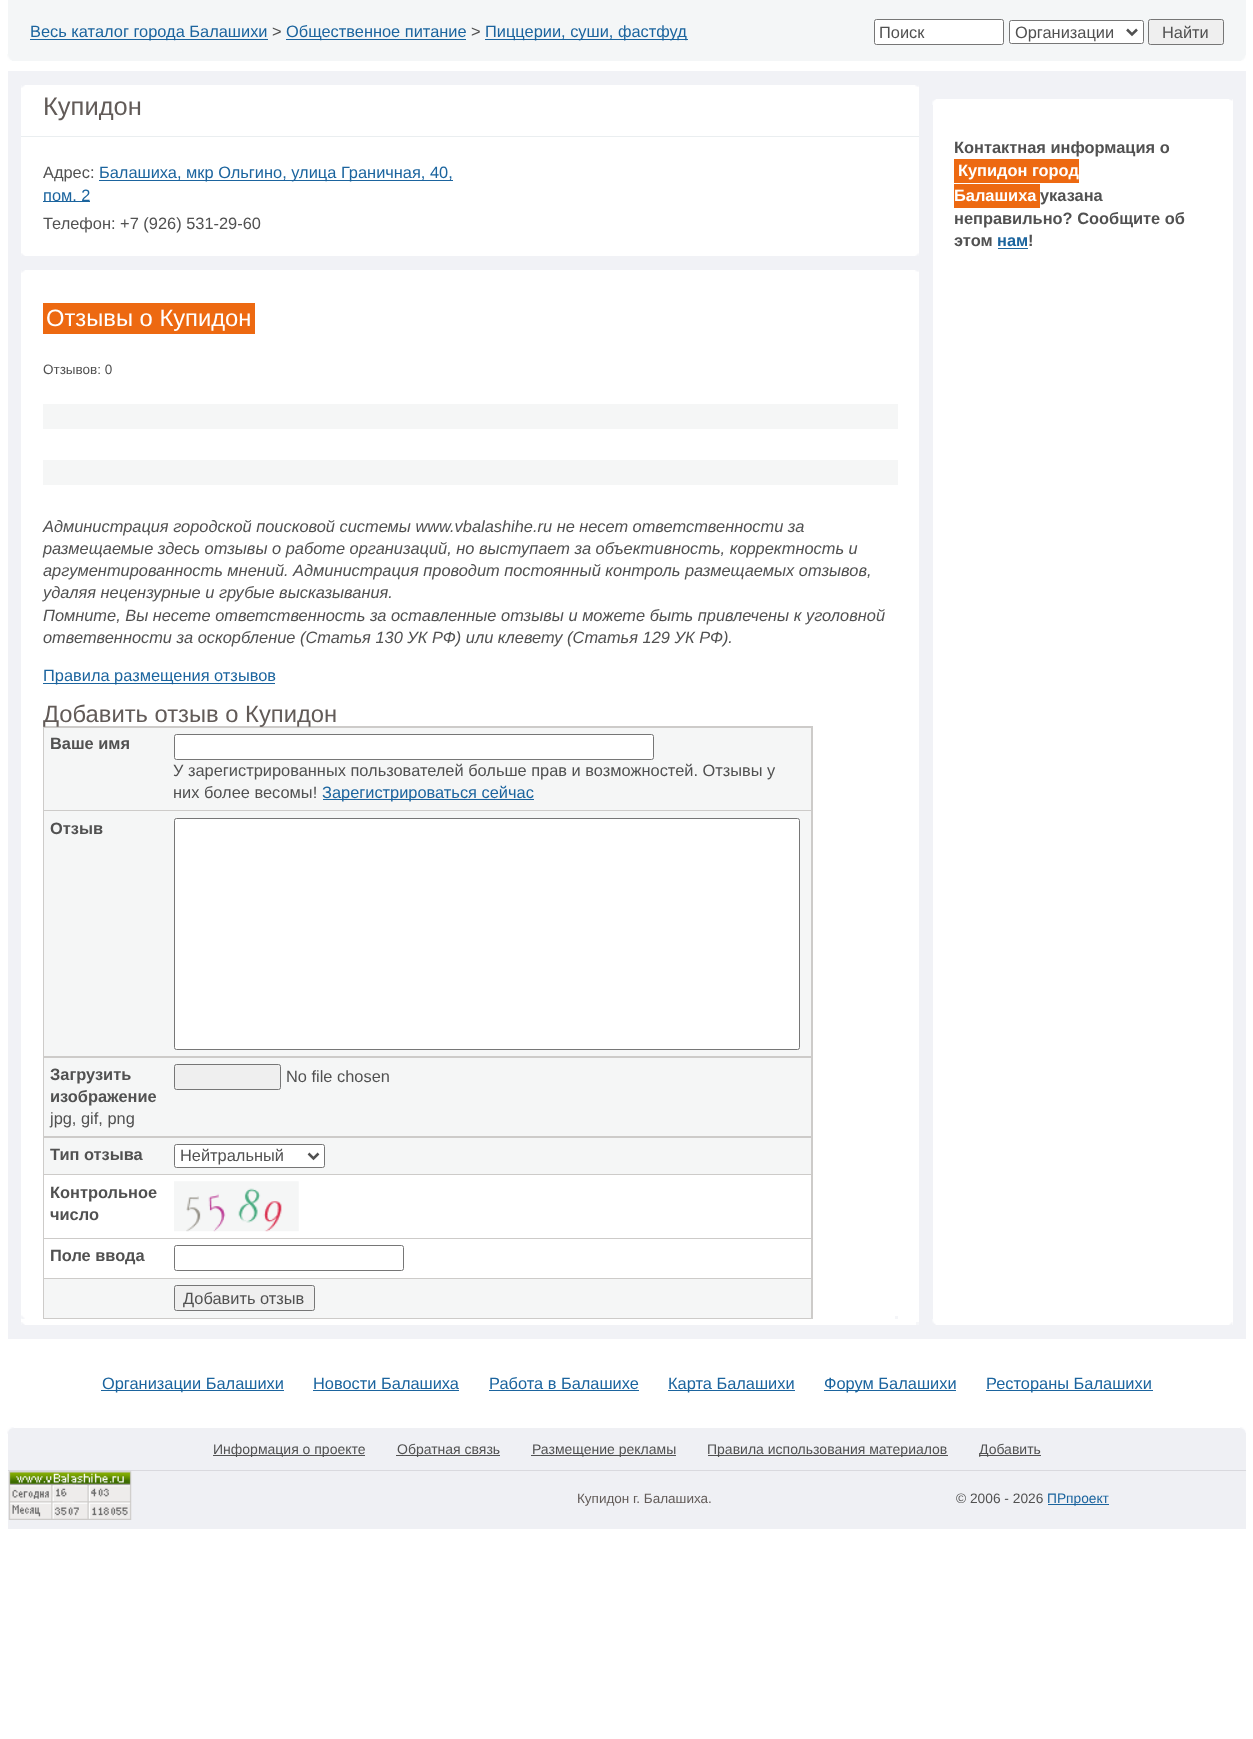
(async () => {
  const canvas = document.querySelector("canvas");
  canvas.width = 1253;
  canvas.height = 1739;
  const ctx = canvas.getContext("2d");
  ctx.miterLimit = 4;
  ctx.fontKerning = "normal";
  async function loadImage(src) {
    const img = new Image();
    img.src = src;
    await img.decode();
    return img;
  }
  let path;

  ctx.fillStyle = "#ffffff";
  ctx.fillRect(0, 0, 1253, 1739);
  for (const [x, y, w, h, color] of [
    [8, 0, 1238, 61, "#f4f6f7"],
    [30, 39, 238, 1, "#1b649e"],
    [286, 39, 180, 1, "#1b649e"],
    [485, 39, 203, 1, "#1b649e"],
  ]) {
    ctx.fillStyle = color;
    ctx.fillRect(x, y, w, h);
  }
  ctx.fillStyle = "#ffffff";
  ctx.beginPath();
  ctx.roundRect(874.5, 19.5, 129, 25, 2);
  ctx.fill();
  ctx.strokeStyle = "#767676";
  ctx.stroke();
  ctx.beginPath();
  ctx.roundRect(1009.5, 20.5, 134, 23, 2);
  ctx.fill();
  ctx.stroke();
  path = new Path2D("M1127 29.5L1132 34.5L1137 29.5");
  ctx.strokeStyle = "#515151";
  ctx.lineWidth = 2.5;
  ctx.stroke(path);
  ctx.fillStyle = "#efefef";
  ctx.beginPath();
  ctx.roundRect(1148.5, 19.5, 75, 25, 2);
  ctx.fill();
  ctx.strokeStyle = "#767676";
  ctx.lineWidth = 1;
  ctx.stroke();
  ctx.drawImage(await loadImage("img/1.png"), 7, 54, 5, 7);
  ctx.drawImage(await loadImage("img/2.png"), 1241, 55, 5, 6);
  ctx.fillStyle = "#f1f2f6";
  ctx.fillRect(8, 71, 1238, 1268);
  ctx.fillStyle = "#ffffff";
  ctx.fillRect(21, 85, 1212, 1240);
  ctx.drawImage(await loadImage("img/3.png"), 21, 85, 4, 3);
  ctx.drawImage(await loadImage("img/4.png"), 915, 85, 4, 2);
  for (const [x, y, w, h, color] of [
    [21, 136, 898, 1, "#eaeef0"],
    [99, 180, 354, 1, "#1b649e"],
    [43, 201, 47, 1, "#1b649e"],
  ]) {
    ctx.fillStyle = color;
    ctx.fillRect(x, y, w, h);
  }
  ctx.drawImage(await loadImage("img/5.png"), 21, 253, 4, 3);
  ctx.drawImage(await loadImage("img/6.png"), 915, 253, 4, 3);
  ctx.fillStyle = "#f1f2f6";
  ctx.fillRect(21, 256, 898, 14);
  ctx.drawImage(await loadImage("img/3.png"), 21, 270, 4, 3);
  ctx.drawImage(await loadImage("img/4.png"), 915, 270, 4, 2);
  for (const [x, y, w, h, color] of [
    [43, 303, 212, 31, "#ed6911"],
    [43, 404, 855, 25, "#f5f6f6"],
    [43, 460, 855, 25, "#f5f6f6"],
    [43, 683, 232, 1, "#1b649e"],
    [43, 726, 770, 593, "#cdcbc9"],
    [44, 728, 767, 82, "#f5f6f6"],
  ]) {
    ctx.fillStyle = color;
    ctx.fillRect(x, y, w, h);
  }
  ctx.fillStyle = "#ffffff";
  ctx.beginPath();
  ctx.roundRect(174.5, 734.5, 479, 25, 2);
  ctx.fill();
  ctx.stroke();
  ctx.fillStyle = "#1b649e";
  ctx.fillRect(323, 799, 211, 1);
  ctx.fillStyle = "#f5f6f6";
  ctx.fillRect(44, 811, 767, 245);
  ctx.fillStyle = "#ffffff";
  ctx.beginPath();
  ctx.roundRect(174.5, 818.5, 625, 231, 2);
  ctx.fill();
  ctx.stroke();
  ctx.fillStyle = "#f5f6f6";
  ctx.fillRect(44, 1058, 767, 78);
  ctx.fillStyle = "#efefef";
  ctx.beginPath();
  ctx.roundRect(174.5, 1064.5, 106, 25, 2);
  ctx.fill();
  ctx.stroke();
  ctx.fillStyle = "#f5f6f6";
  ctx.fillRect(44, 1138, 767, 36);
  ctx.fillStyle = "#ffffff";
  ctx.beginPath();
  ctx.roundRect(174.5, 1144.5, 150, 23, 2);
  ctx.fill();
  ctx.stroke();
  path = new Path2D("M308.5 1153.5L313.5 1158.5L318.5 1153.5");
  ctx.strokeStyle = "#515151";
  ctx.lineWidth = 2.5;
  ctx.stroke(path);
  ctx.fillRect(44, 1175, 767, 63);
  ctx.drawImage(await loadImage("img/7.png"), 174, 1181, 125, 51);
  ctx.fillRect(44, 1239, 767, 39);
  ctx.beginPath();
  ctx.roundRect(174.5, 1245.5, 229, 25, 2);
  ctx.strokeStyle = "#767676";
  ctx.lineWidth = 1;
  ctx.stroke();
  ctx.fillStyle = "#f5f6f6";
  ctx.fillRect(44, 1279, 767, 39);
  ctx.fillStyle = "#efefef";
  ctx.beginPath();
  ctx.roundRect(174.5, 1285.5, 140, 25, 2);
  ctx.fill();
  ctx.stroke();
  ctx.drawImage(await loadImage("img/8.png"), 21, 1315, 4, 4);
  for (const [x, y, w, h, color] of [
    [895, 1316, 3, 3, "#f4f5f8"],
    [919, 85, 14, 1240, "#f1f2f6"],
    [933, 85, 300, 14, "#f1f2f6"],
  ]) {
    ctx.fillStyle = color;
    ctx.fillRect(x, y, w, h);
  }
  ctx.drawImage(await loadImage("img/9.png"), 932, 99, 4, 6);
  ctx.drawImage(await loadImage("img/10.png"), 1229, 99, 4, 2);
  for (const [x, y, w, h, color] of [
    [954, 159, 125, 24, "#ed6911"],
    [954, 184, 86, 24, "#ed6911"],
    [998, 248, 30, 1, "#1b649e"],
  ]) {
    ctx.fillStyle = color;
    ctx.fillRect(x, y, w, h);
  }
  ctx.drawImage(await loadImage("img/11.png"), 21, 1322, 4, 3);
  ctx.fillStyle = "#f6f7f9";
  ctx.fillRect(916, 1322, 3, 3);
  ctx.drawImage(await loadImage("img/12.png"), 932, 1319, 4, 6);
  ctx.drawImage(await loadImage("img/13.png"), 1229, 1322, 4, 3);
  for (const [x, y, w, h, color] of [
    [101, 1390, 183, 1, "#1b649e"],
    [313, 1390, 146, 1, "#1b649e"],
    [489, 1390, 150, 1, "#1b649e"],
    [668, 1390, 127, 1, "#1b649e"],
    [824, 1390, 132, 1, "#1b649e"],
    [986, 1390, 167, 1, "#1b649e"],
    [8, 1428, 1238, 42, "#eff0f4"],
    [8, 1470, 1238, 1, "#d9d9de"],
  ]) {
    ctx.fillStyle = color;
    ctx.fillRect(x, y, w, h);
  }
  ctx.drawImage(await loadImage("img/14.png"), 7, 1427, 7, 7);
  ctx.drawImage(await loadImage("img/15.png"), 1240, 1427, 6, 6);
  for (const [x, y, w, h, color] of [
    [213, 1455, 152, 1, "#515151"],
    [396, 1455, 104, 1, "#515151"],
    [531, 1455, 145, 1, "#515151"],
    [708, 1455, 240, 1, "#515151"],
    [979, 1455, 62, 1, "#515151"],
    [8, 1471, 1238, 58, "#eff0f4"],
  ]) {
    ctx.fillStyle = color;
    ctx.fillRect(x, y, w, h);
  }
  ctx.drawImage(await loadImage("img/16.png"), 8, 1471, 124, 49);
  ctx.fillStyle = "#1b649e";
  ctx.fillRect(1048, 1504, 61, 1);
  ctx.font = "16.4px Liberation Sans";
  ctx.fillText("Весь каталог города Балашихи", 30, 37);
  ctx.fillStyle = "#515151";
  ctx.fillText(">", 272, 37);
  ctx.fillStyle = "#1b649e";
  ctx.fillText("Общественное питание", 286, 37);
  ctx.fillStyle = "#515151";
  ctx.fillText(">", 471, 37);
  ctx.fillStyle = "#1b649e";
  ctx.fillText("Пиццерии, суши, фастфуд", 485, 37);
  ctx.fillStyle = "#515151";
  for (const [text, x, y] of [
    ["Поиск", 879, 38],
    ["Организации", 1015, 38],
    ["Найти", 1162, 38],
  ]) {
    ctx.fillText(text, x, y);
  }
  ctx.font = "25.5px Liberation Sans";
  ctx.fillStyle = "#625b58";
  ctx.fillText("Купидон", 43, 115);
  ctx.font = "16.4px Liberation Sans";
  ctx.fillStyle = "#515151";
  ctx.fillText("Адрес:", 43, 178);
  ctx.fillStyle = "#1b649e";
  ctx.fillText("Балашиха, мкр Ольгино, улица Граничная, 40,", 99, 178);
  ctx.fillText("пом. 2", 43, 201);
  ctx.fillStyle = "#515151";
  ctx.fillText("Телефон: +7 (926) 531-29-60", 43, 229);
  ctx.font = "23.75px Liberation Sans";
  ctx.fillStyle = "#ffffff";
  ctx.fillText("Отзывы о Купидон", 46, 326);
  ctx.font = "13.5px Liberation Sans";
  ctx.fillStyle = "#515151";
  ctx.fillText("Отзывов: 0", 43, 374);
  ctx.font = "italic 16.4px Liberation Sans";
  for (const [text, x, y] of [
    ["Администрация городской поисковой системы www.vbalashihe.ru не несет ответственности за", 43, 532],
    ["размещаемые здесь отзывы о работе организаций, но выступает за объективность, корректность и", 43, 554],
    ["аргументированность мнений. Администрация проводит постоянный контроль размещаемых отзывов,", 43, 576],
    ["удаляя нецензурные и грубые высказывания.", 43, 598],
    ["Помните, Вы несете ответственность за оставленные отзывы и можете быть привлечены к уголовной", 43, 621],
    ["ответвенности за оскорбление (Статья 130 УК РФ) или клевету (Статья 129 УК РФ).", 43, 643],
  ]) {
    ctx.fillText(text, x, y);
  }
  ctx.font = "16.4px Liberation Sans";
  ctx.fillStyle = "#1b649e";
  ctx.fillText("Правила размещения отзывов", 43, 681);
  ctx.font = "23.75px Liberation Sans";
  ctx.fillStyle = "#625b58";
  ctx.fillText("Добавить отзыв о Купидон", 43, 722);
  ctx.font = "bold 16.4px Liberation Sans";
  ctx.fillStyle = "#515151";
  ctx.fillText("Ваше имя", 50, 749);
  ctx.font = "16.4px Liberation Sans";
  ctx.fillText("У зарегистрированных пользователей больше прав и возможностей. Отзывы у", 173, 776);
  ctx.fillText("них более весомы!", 173, 798);
  ctx.fillStyle = "#1b649e";
  ctx.fillText("Зарегистрироваться сейчас", 322, 798);
  ctx.font = "bold 16.4px Liberation Sans";
  ctx.fillStyle = "#515151";
  for (const [text, x, y] of [
    ["Отзыв", 50, 834],
    ["Загрузить", 50, 1080],
    ["изображение", 50, 1102],
  ]) {
    ctx.fillText(text, x, y);
  }
  ctx.font = "16.4px Liberation Sans";
  ctx.fillText("jpg, gif, png", 50, 1124);
  ctx.fillText("No file chosen", 286, 1082);
  ctx.font = "bold 16.4px Liberation Sans";
  ctx.fillText("Тип отзыва", 50, 1160);
  ctx.font = "16.4px Liberation Sans";
  ctx.fillText("Нейтральный", 180, 1161);
  ctx.font = "bold 16.4px Liberation Sans";
  for (const [text, x, y] of [
    ["Контрольное", 50, 1198],
    ["число", 50, 1220],
    ["Поле ввода", 50, 1261],
  ]) {
    ctx.fillText(text, x, y);
  }
  ctx.font = "16.4px Liberation Sans";
  ctx.fillText("Добавить отзыв", 183, 1304);
  ctx.font = "bold 16.4px Liberation Sans";
  ctx.fillText("Контактная информация о", 954, 153);
  ctx.fillStyle = "#ffffff";
  ctx.fillText("Купидон город", 958, 176);
  ctx.fillText("Балашиха", 954, 201);
  ctx.fillStyle = "#515151";
  for (const [text, x, y] of [
    ["указана", 1040, 201],
    ["неправильно? Сообщите об", 954, 224],
    ["этом", 954, 246],
  ]) {
    ctx.fillText(text, x, y);
  }
  ctx.fillStyle = "#1b649e";
  ctx.fillText("нам", 997, 246);
  ctx.fillStyle = "#515151";
  ctx.fillText("!", 1028, 246);
  ctx.font = "16.4px Liberation Sans";
  ctx.fillStyle = "#1b649e";
  for (const [text, x, y] of [
    ["Организации Балашихи", 102, 1389],
    ["Новости Балашиха", 313, 1389],
    ["Работа в Балашихе", 489, 1389],
    ["Карта Балашихи", 668, 1389],
    ["Форум Балашихи", 824, 1389],
    ["Рестораны Балашихи", 986, 1389],
  ]) {
    ctx.fillText(text, x, y);
  }
  ctx.font = "14px Liberation Sans";
  ctx.fillStyle = "#515151";
  for (const [text, x, y] of [
    ["Информация о проекте", 213, 1454],
    ["Обратная связь", 397, 1454],
    ["Размещение рекламы", 532, 1454],
    ["Правила использования материалов", 707, 1454],
    ["Добавить", 979, 1454],
  ]) {
    ctx.fillText(text, x, y);
  }
  ctx.font = "13.5px Liberation Sans";
  ctx.fillStyle = "#625b58";
  ctx.fillText("Купидон г. Балашиха.", 577, 1503);
  ctx.font = "13.75px Liberation Sans";
  ctx.fillStyle = "#515151";
  ctx.fillText("© 2006 - 2026", 956, 1503);
  ctx.fillStyle = "#1b649e";
  ctx.fillText("ПРпроект", 1047, 1503);
})();
